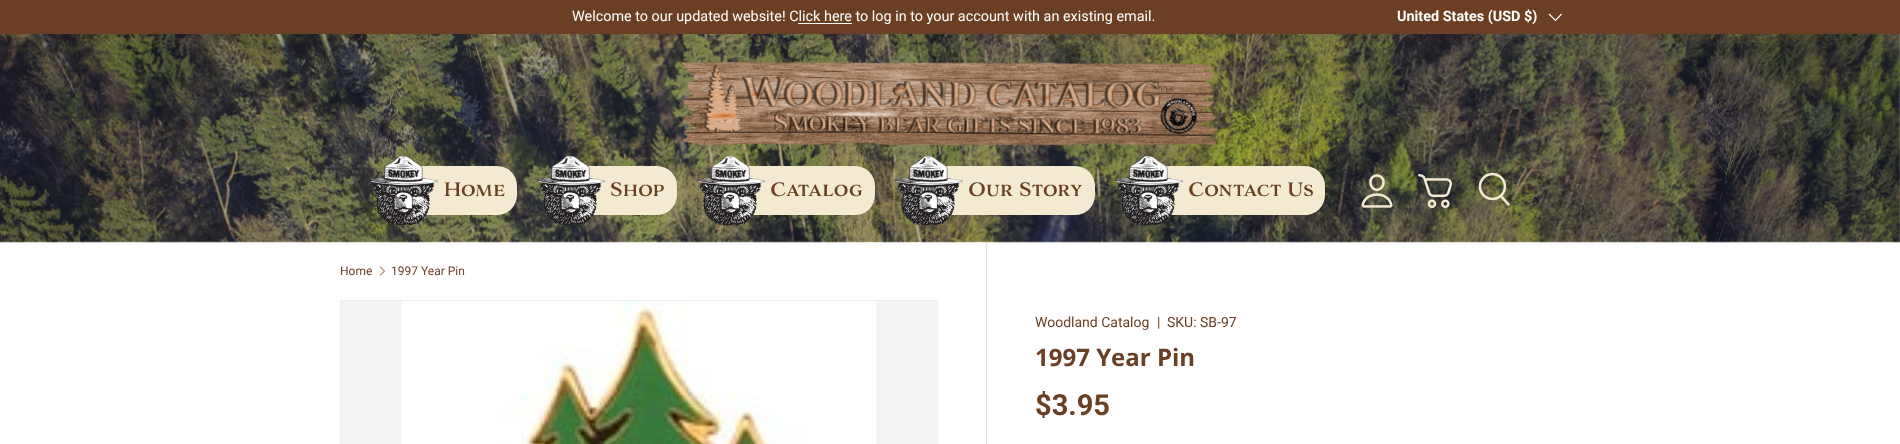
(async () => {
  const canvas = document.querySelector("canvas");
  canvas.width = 1900;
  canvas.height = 444;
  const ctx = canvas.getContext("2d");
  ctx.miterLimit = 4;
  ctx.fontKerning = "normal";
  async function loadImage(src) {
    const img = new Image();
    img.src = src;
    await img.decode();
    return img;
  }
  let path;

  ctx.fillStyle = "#ffffff";
  ctx.fillRect(0, 0, 1900, 444);
  ctx.fillStyle = "#6a3f24";
  ctx.fillRect(0, 0, 1900, 34);
  ctx.fillStyle = "#ffffff";
  ctx.fillRect(798, 23, 54, 1);
  path = new Path2D("M1561.5 14L1555.5 20.5L1549 14");
  ctx.strokeStyle = "#ffffff";
  ctx.lineWidth = 1.2;
  ctx.stroke(path);
  ctx.fillStyle = "#aba492";
  ctx.fillRect(0, 34, 1900, 208);
  ctx.fillStyle = "#e9e2de";
  ctx.fillRect(986, 242, 1, 202);
  ctx.drawImage(await loadImage("img/1.png"), 0, 34, 1900, 209);
  ctx.drawImage(await loadImage("img/2.png"), 682, 61, 536, 84);
  ctx.fillStyle = "#f4ead1";
  ctx.beginPath();
  ctx.roundRect(385, 166, 132, 49, 20);
  ctx.fill();
  ctx.drawImage(await loadImage("img/3.png"), 370, 156, 68, 70);
  ctx.beginPath();
  ctx.roundRect(552, 166, 125, 49, 20);
  ctx.fill();
  ctx.drawImage(await loadImage("img/4.png"), 537, 156, 68, 70);
  ctx.beginPath();
  ctx.roundRect(712, 166, 163, 49, 20);
  ctx.fill();
  ctx.drawImage(await loadImage("img/5.png"), 697, 156, 68, 70);
  ctx.beginPath();
  ctx.roundRect(910, 166, 185, 49, 20);
  ctx.fill();
  ctx.drawImage(await loadImage("img/6.png"), 895, 156, 68, 70);
  ctx.beginPath();
  ctx.roundRect(1130, 166, 195, 49, 20);
  ctx.fill();
  ctx.drawImage(await loadImage("img/7.png"), 1115, 156, 68, 70);
  ctx.drawImage(await loadImage("img/8.png"), 1361, 174, 32, 34);
  ctx.drawImage(await loadImage("img/9.png"), 1418, 174, 34, 34);
  ctx.drawImage(await loadImage("img/10.png"), 1478, 172, 32, 34);
  path = new Path2D("M380 266.5L384.5 271L380 275.5");
  ctx.strokeStyle = "#6a3f24";
  ctx.lineWidth = 0.9;
  ctx.stroke(path);
  ctx.fillStyle = "#f4f4f4";
  ctx.beginPath();
  ctx.rect(340.5, 300.5, 597, 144);
  ctx.fill();
  ctx.strokeStyle = "#eeeeee";
  ctx.lineWidth = 1;
  ctx.stroke();
  ctx.drawImage(await loadImage("img/11.png"), 401, 301, 476, 143);
  ctx.font = "14.4px Roboto";
  ctx.fillStyle = "#ffffff";
  ctx.fillText("Welcome to our updated website! Click here to log in to your account with an existing email.", 572, 21);
  ctx.font = "bold 14.4px Roboto";
  ctx.fillText("United States (USD $)", 1397, 21);
  ctx.font = "18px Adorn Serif";
  ctx.fillStyle = "#6a3f24";
  for (const [text, x, y] of [
    ["Home", 443, 196],
    ["Shop", 610, 196],
    ["Catalog", 770, 196],
    ["Our Story", 968, 196],
    ["Contact Us", 1188, 196],
  ]) {
    ctx.fillText(text, x, y);
  }
  ctx.font = "12px Roboto";
  ctx.fillText("Home", 340, 275);
  ctx.fillText("1997 Year Pin", 391, 275);
  ctx.font = "14px Roboto";
  for (const [text, x, y] of [
    ["Woodland Catalog", 1035, 327],
    ["|", 1157, 327],
    ["SKU: SB-97", 1167, 327],
  ]) {
    ctx.fillText(text, x, y);
  }
  ctx.font = "bold 24px Open Sans";
  ctx.fillText("1997 Year Pin", 1035, 366);
  ctx.font = "bold 29px Roboto";
  ctx.fillText("$3.95", 1035, 415);
})();
